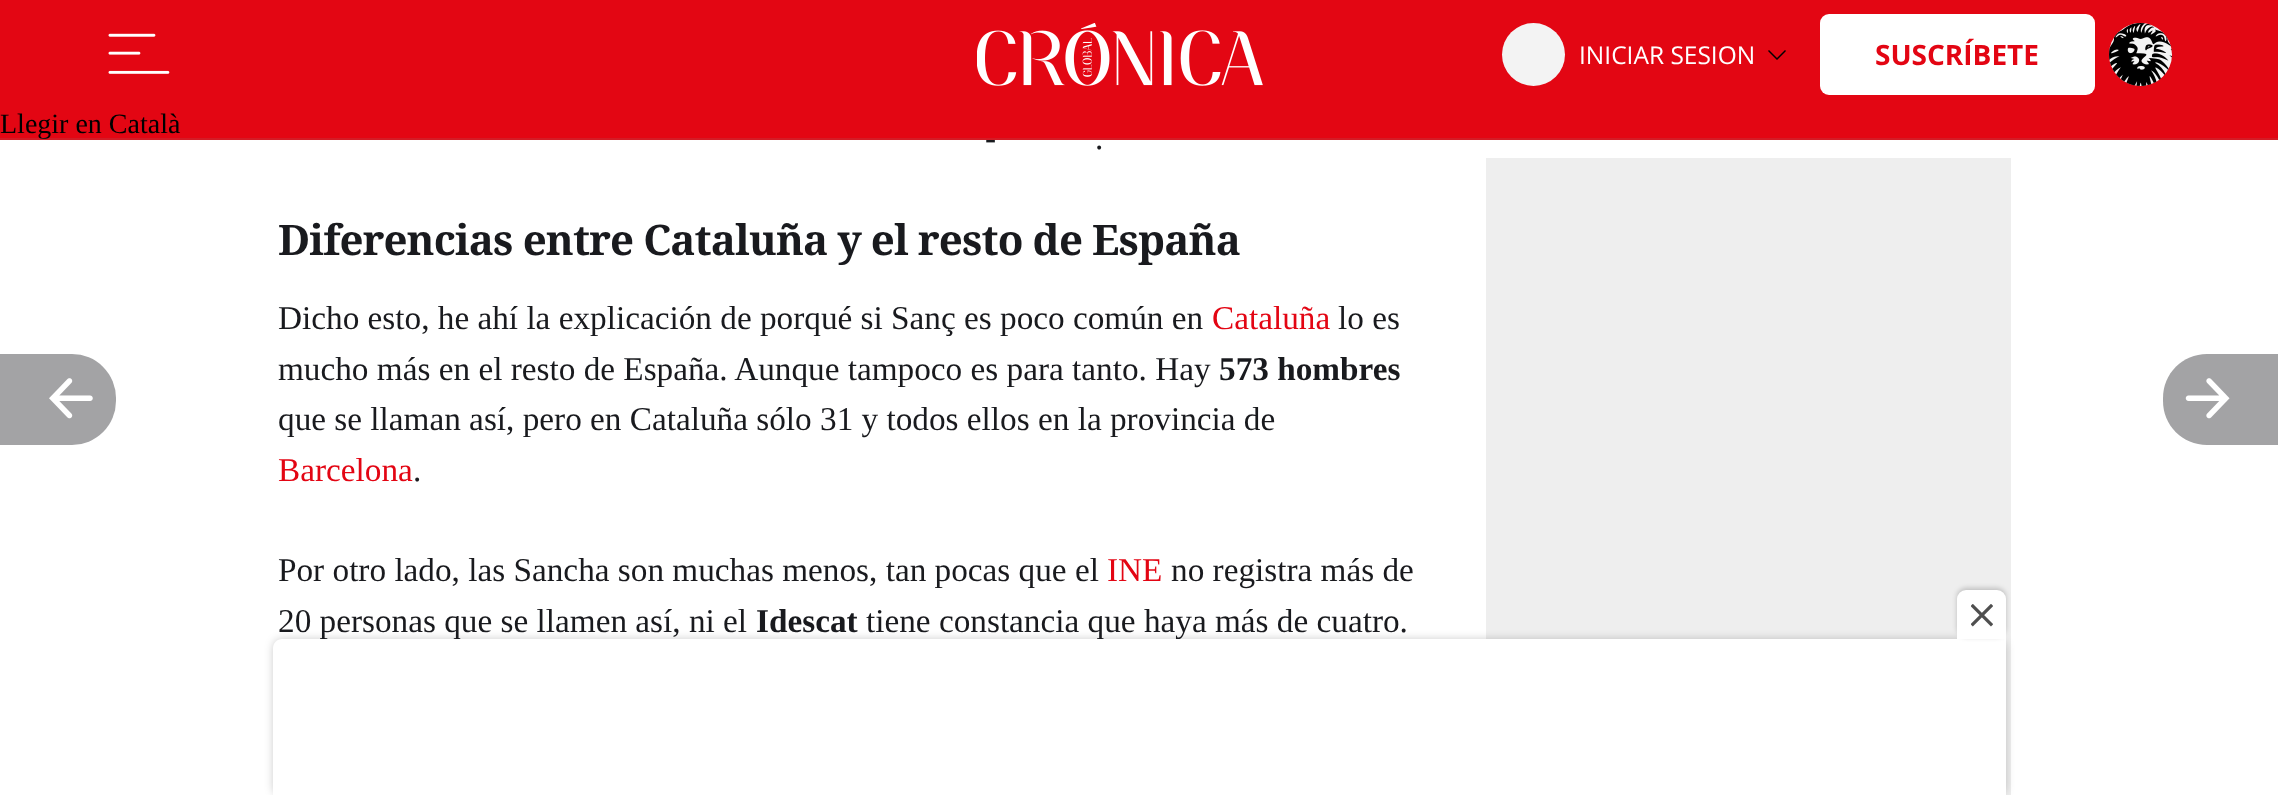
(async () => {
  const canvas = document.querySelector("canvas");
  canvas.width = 2278;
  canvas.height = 795;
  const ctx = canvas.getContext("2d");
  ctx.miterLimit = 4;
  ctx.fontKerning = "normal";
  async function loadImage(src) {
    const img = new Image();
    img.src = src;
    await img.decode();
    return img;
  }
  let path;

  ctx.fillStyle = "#ffffff";
  ctx.fillRect(0, 0, 2278, 795);
  ctx.fillStyle = "#a3a3a5";
  ctx.beginPath();
  ctx.roundRect(0, 354, 116, 91, [0, 44, 44, 0]);
  ctx.fill();
  ctx.drawImage(await loadImage("img/4.png"), 49, 378, 44, 41);
  ctx.fillStyle = "#eeeeee";
  ctx.fillRect(1486, 158, 525, 637);
  ctx.fillStyle = "#a3a3a5";
  path = new Path2D("M2207 354H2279V445H2207C2182.5 445 2163 425.5 2163 401V398C2163 373.5 2182.5 354 2207 354Z");
  ctx.fill(path);
  ctx.drawImage(await loadImage("img/5.png"), 2185, 378, 45, 41);
  ctx.fillStyle = "rgba(0, 0, 0, 0.2)";
  ctx.filter = "blur(4.5px)";
  ctx.beginPath();
  ctx.roundRect(273, 639, 1733, 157, 9);
  ctx.fill();
  ctx.filter = "none";
  ctx.font = "33.25px Liberation Serif";
  ctx.fillStyle = "#191a1e";
  ctx.fillText("-", 985, 149);
  ctx.fillStyle = "#e30613";
  ctx.fillRect(0, 0, 2278, 140);
  ctx.fillStyle = "#f3f3f3";
  ctx.beginPath();
  ctx.arc(2140.5, 54.5, 31.5, 0, Math.PI * 2);
  ctx.fill();
  ctx.drawImage(await loadImage("img/3.png"), 2109, 23, 63, 63);
  ctx.fillStyle = "#000000";
  path = new Path2D("M1777 58L1785 50L1786 51L1777 60L1768 51L1769 50Z");
  ctx.fill(path);
  ctx.fillStyle = "#f3f3f3";
  ctx.beginPath();
  ctx.arc(1533.5, 54.5, 31.5, 0, Math.PI * 2);
  ctx.fill();
  ctx.fillStyle = "#ffffff";
  ctx.beginPath();
  ctx.roundRect(1820, 14, 275, 81, 9);
  ctx.fill();
  ctx.font = "bold 28px Open Sans";
  ctx.fillStyle = "#e30513";
  ctx.fillText("SUSCRÍBETE", 1875, 65);
  ctx.font = "24.5px Open Sans";
  ctx.fillStyle = "#ffffff";
  ctx.fillText("INICIAR SESION", 1579, 64);
  ctx.drawImage(await loadImage("img/2.png"), 977, 23, 286, 63);
  ctx.drawImage(await loadImage("img/1.png"), 108, 33, 62, 41);
  ctx.font = "28px Liberation Serif";
  ctx.fillStyle = "#000000";
  ctx.fillText("Llegir en Català", 0, 133);
  ctx.fillStyle = "rgba(134, 134, 134, 0.16)";
  ctx.fillRect(0, 138, 2278, 2);
  ctx.font = "33.25px Liberation Serif";
  ctx.fillStyle = "#191a1e";
  ctx.fillText(".", 1095, 149);
  ctx.letterSpacing = "-0.9px";
  ctx.font = "bold 42px Noto Serif";
  ctx.fillText("Diferencias entre Cataluña y el resto de España", 278, 255);
  ctx.letterSpacing = "0px";
  ctx.font = "33.25px Liberation Serif";
  ctx.fillText("Dicho esto, he ahí la explicación de porqué si Sanç es poco común en", 278, 329);
  ctx.fillStyle = "#e30513";
  ctx.fillText("Cataluña", 1212, 329);
  ctx.fillStyle = "#191a1e";
  ctx.fillText("lo es", 1338, 329);
  ctx.fillText("mucho más en el resto de España. Aunque tampoco es para tanto. Hay", 278, 380);
  ctx.font = "bold 33.25px Liberation Serif";
  ctx.fillText("573 hombres", 1219, 380);
  ctx.font = "33.25px Liberation Serif";
  ctx.fillText("que se llaman así, pero en Cataluña sólo 31 y todos ellos en la provincia de", 278, 430);
  ctx.fillStyle = "#e30513";
  ctx.fillText("Barcelona", 278, 481);
  ctx.fillStyle = "#191a1e";
  ctx.fillText(".", 413, 481);
  ctx.fillText("Por otro lado, las Sancha son muchas menos, tan pocas que el", 278, 581);
  ctx.fillStyle = "#e30513";
  ctx.fillText("INE", 1107, 581);
  ctx.fillStyle = "#191a1e";
  ctx.fillText("no registra más de", 1171, 581);
  ctx.fillText("20 personas que se llamen así, ni el", 278, 632);
  ctx.font = "bold 33.25px Liberation Serif";
  ctx.fillText("Idescat", 756, 632);
  ctx.font = "33.25px Liberation Serif";
  ctx.fillText("tiene constancia que haya más de cuatro.", 866, 632);
  ctx.fillStyle = "#ffffff";
  path = new Path2D("M282 639H2006V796H273V648C273 643 277 639 282 639Z");
  ctx.fill(path);
  ctx.fillStyle = "rgba(0, 0, 0, 0.2)";
  ctx.filter = "blur(2.5px)";
  ctx.beginPath();
  ctx.roundRect(1957, 588, 49, 49, 9);
  ctx.fill();
  ctx.filter = "none";
  ctx.fillStyle = "#ffffff";
  ctx.beginPath();
  ctx.roundRect(1957, 590, 49, 49, [9, 9, 0, 0]);
  ctx.fill();
  ctx.drawImage(await loadImage("img/6.png"), 1971, 604, 22, 23);
})();
